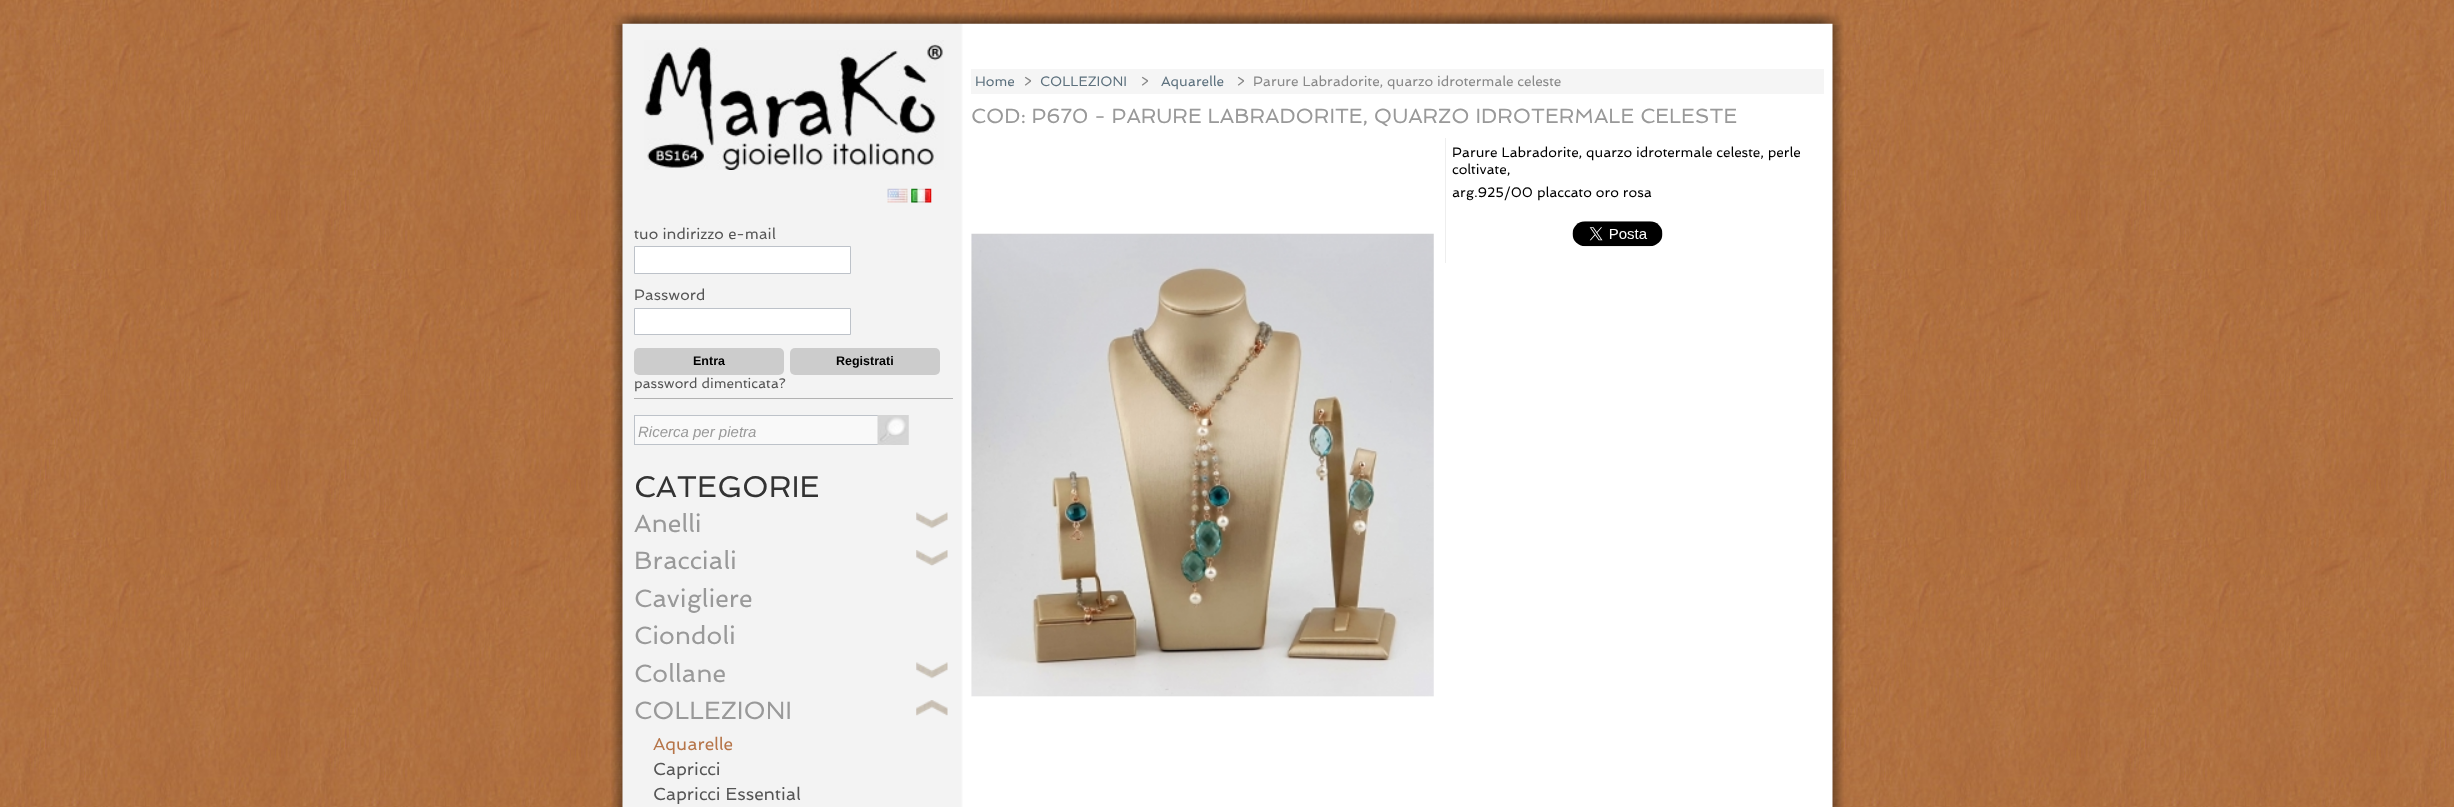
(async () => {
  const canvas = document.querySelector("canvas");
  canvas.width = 2454;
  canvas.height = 807;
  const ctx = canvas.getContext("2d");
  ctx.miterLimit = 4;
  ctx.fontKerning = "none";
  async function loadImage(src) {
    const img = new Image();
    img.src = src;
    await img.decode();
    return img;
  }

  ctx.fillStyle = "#ffffff";
  ctx.fillRect(0, 0, 2454, 807);
  ctx.drawImage(await loadImage("img/1.png"), 0, 0, 2454, 807);
  ctx.drawImage(await loadImage("img/2.png"), 612, 12, 1231, 13);
  ctx.drawImage(await loadImage("img/3.png"), 611, 25, 1233, 782);
  ctx.drawImage(await loadImage("img/4.png"), 644, 40, 300, 130);
  ctx.drawImage(await loadImage("img/5.png"), 887, 188, 21, 15);
  ctx.drawImage(await loadImage("img/6.png"), 911, 188, 21, 15);
  ctx.fillStyle = "#f5f5f5";
  ctx.fillRect(971, 69, 853, 25);
  ctx.fillStyle = "#eeeeee";
  ctx.fillRect(1445, 138, 1, 125);
  ctx.drawImage(await loadImage("img/7.png"), 1572, 221, 91, 26);
  ctx.drawImage(await loadImage("img/8.png"), 971, 233, 463, 464);
  ctx.fillStyle = "#b2b2b2";
  ctx.fillRect(634, 398, 319, 1);
  ctx.fillStyle = "#ffffff";
  ctx.beginPath();
  ctx.rect(634.5, 246.5, 216, 27);
  ctx.fill();
  ctx.strokeStyle = "#bdc2c9";
  ctx.stroke();
  ctx.beginPath();
  ctx.rect(634.5, 308.5, 216, 26);
  ctx.fill();
  ctx.stroke();
  ctx.fillStyle = "#cccccc";
  ctx.beginPath();
  ctx.roundRect(634, 348, 150, 27, 5);
  ctx.fill();
  ctx.beginPath();
  ctx.roundRect(790, 348, 150, 27, 5);
  ctx.fill();
  ctx.fillStyle = "#f9f9f9";
  ctx.fillRect(635, 416, 243, 28);
  ctx.strokeRect(634.5, 415.5, 246, 29);
  ctx.drawImage(await loadImage("img/9.png"), 877, 415, 32, 30);
  ctx.drawImage(await loadImage("img/10.png"), 916, 512, 32, 17);
  ctx.drawImage(await loadImage("img/11.png"), 916, 550, 32, 16);
  ctx.drawImage(await loadImage("img/12.png"), 916, 662, 32, 17);
  ctx.drawImage(await loadImage("img/13.png"), 916, 700, 32, 16);
  ctx.font = "13.75px Spinnaker";
  ctx.fillStyle = "#5d717e";
  ctx.fillText("Home", 975, 86);
  ctx.fillStyle = "#888888";
  ctx.fillText(">", 1023, 86);
  ctx.fillStyle = "#5d717e";
  ctx.fillText("COLLEZIONI", 1040, 86);
  ctx.fillStyle = "#888888";
  ctx.fillText(">", 1140, 86);
  ctx.fillStyle = "#5d717e";
  ctx.fillText("Aquarelle", 1161, 86);
  ctx.fillStyle = "#888888";
  ctx.fillText(">", 1236, 86);
  ctx.fillText("Parure Labradorite, quarzo idrotermale celeste", 1253, 86);
  ctx.font = "20.6px Spinnaker";
  ctx.fillStyle = "#999999";
  ctx.fillText("COD: P670 - PARURE LABRADORITE, QUARZO IDROTERMALE CELESTE", 971, 123);
  ctx.font = "13.75px Spinnaker";
  ctx.fillStyle = "#000000";
  for (const [text, x, y] of [
    ["Parure Labradorite, quarzo idrotermale celeste, perle", 1452, 157],
    ["coltivate,", 1452, 174],
    ["arg.925/00 placcato oro rosa", 1452, 197],
  ]) {
    ctx.fillText(text, x, y);
  }
  ctx.font = "15.1px Spinnaker";
  ctx.fillStyle = "#555555";
  ctx.fillText("tuo indirizzo e-mail", 634, 239);
  ctx.fillText("Password", 634, 300);
  ctx.font = "bold 12.5px Liberation Sans";
  ctx.fillStyle = "#000000";
  ctx.fillText("Entra", 693, 365);
  ctx.fillText("Registrati", 836, 365);
  ctx.font = "13.75px Spinnaker";
  ctx.fillStyle = "#555555";
  ctx.fillText("password dimenticata?", 634, 388);
  ctx.save();
  ctx.beginPath();
  ctx.rect(638, 423, 240, 17);
  ctx.clip();
  ctx.font = "italic 15px Liberation Sans";
  ctx.fillStyle = "#999999";
  ctx.fillText("Ricerca per pietra", 638, 437);
  ctx.restore();
  ctx.font = "30px Spinnaker";
  ctx.fillStyle = "#333333";
  ctx.fillText("CATEGORIE", 634, 497);
  ctx.font = "25px Spinnaker";
  ctx.fillStyle = "#999999";
  for (const [text, x, y] of [
    ["Anelli", 634, 532],
    ["Bracciali", 634, 569],
    ["Cavigliere", 634, 607],
    ["Ciondoli", 634, 644],
    ["Collane", 634, 682],
    ["COLLEZIONI", 634, 719],
  ]) {
    ctx.fillText(text, x, y);
  }
  ctx.font = "17.5px Spinnaker";
  ctx.fillStyle = "#b67549";
  ctx.fillText("Aquarelle", 653, 750);
  ctx.fillStyle = "#555555";
  ctx.fillText("Capricci", 653, 775);
  ctx.fillText("Capricci Essential", 653, 800);
})();
